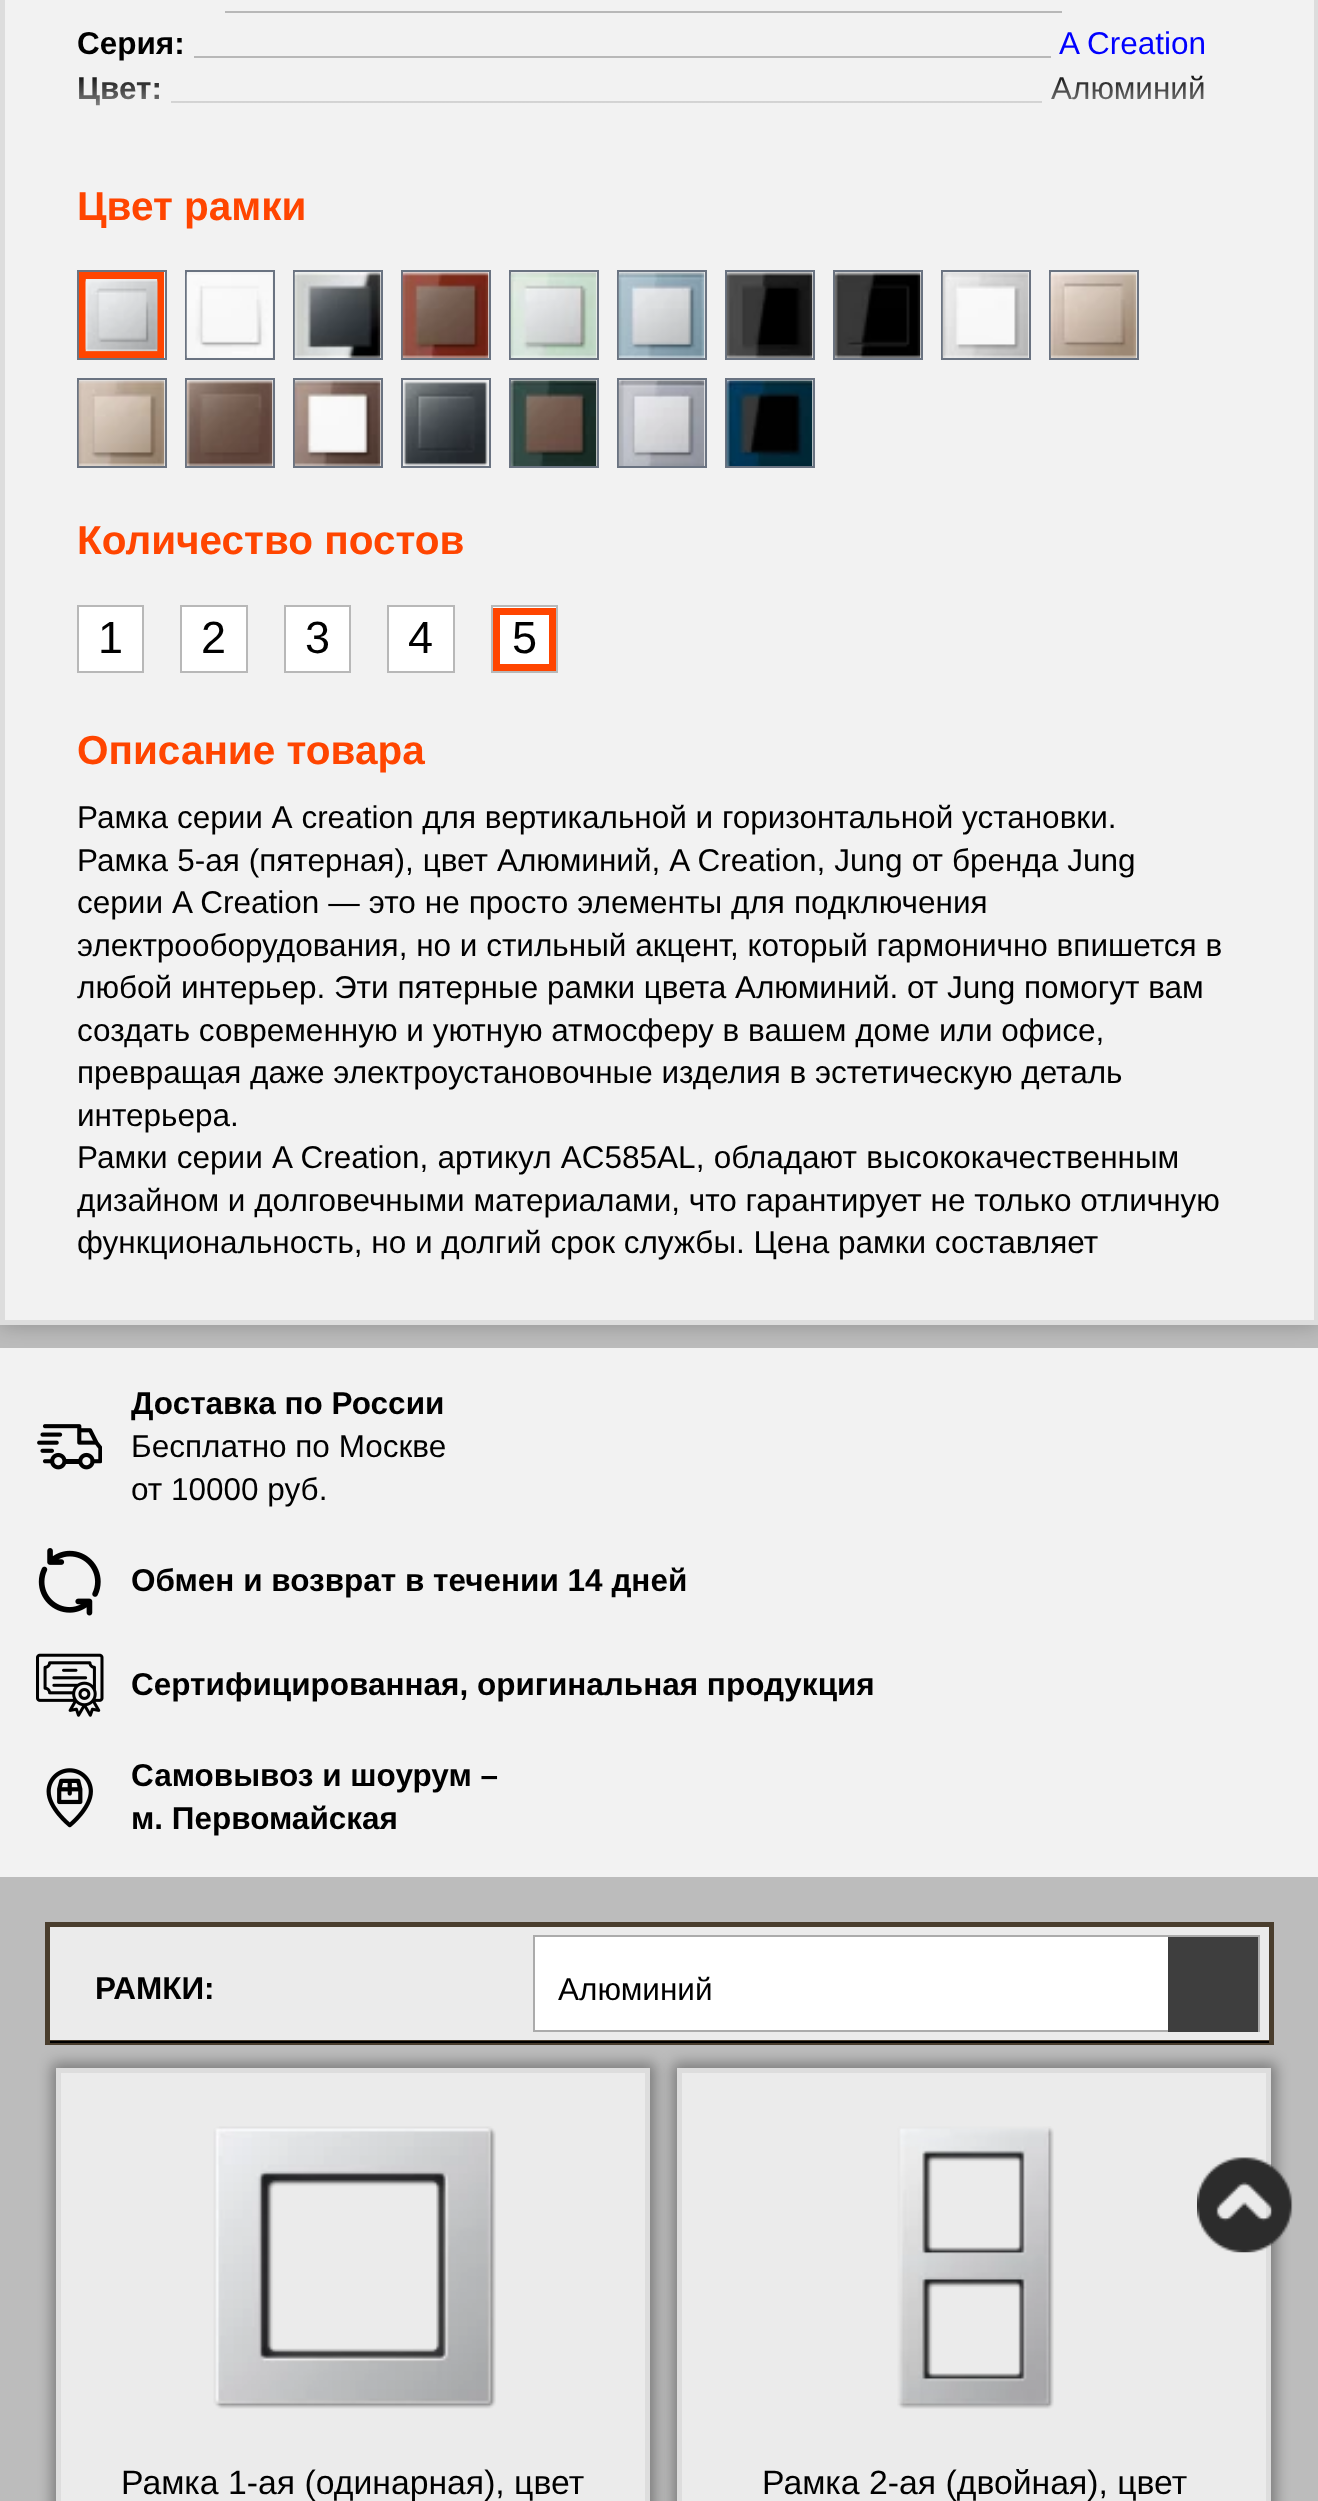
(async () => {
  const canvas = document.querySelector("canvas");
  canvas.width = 1318;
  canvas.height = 2501;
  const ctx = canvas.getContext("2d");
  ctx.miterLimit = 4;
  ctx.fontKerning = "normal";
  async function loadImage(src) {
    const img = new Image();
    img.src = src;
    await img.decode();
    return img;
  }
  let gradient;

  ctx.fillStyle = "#bcbcbc";
  ctx.fillRect(0, 0, 1318, 2501);
  ctx.fillStyle = "rgba(0, 0, 0, 0.25)";
  ctx.filter = "blur(11px)";
  ctx.beginPath();
  ctx.rect(0, -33, 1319, 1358);
  ctx.fill();
  ctx.filter = "none";
  ctx.fillStyle = "#f2f2f2";
  ctx.beginPath();
  ctx.rect(2.5, -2.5, 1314, 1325);
  ctx.fill();
  ctx.strokeStyle = "#dddddd";
  ctx.lineWidth = 5;
  ctx.stroke();
  for (const [x, y, w, h, color] of [
    [225, 11, 837, 2, "#b8b8b8"],
    [194, 56, 857, 2, "#b8b8b8"],
    [171, 101, 871, 2, "#b8b8b8"],
  ]) {
    ctx.fillStyle = color;
    ctx.fillRect(x, y, w, h);
  }
  ctx.strokeStyle = "#ff4500";
  ctx.lineWidth = 7;
  ctx.strokeRect(82.5, 275.5, 78, 79);
  ctx.strokeStyle = "#6a7381";
  ctx.lineWidth = 2;
  ctx.strokeRect(78, 271, 88, 88);
  ctx.drawImage(await loadImage("img/1.png"), 85, 279, 73, 73);
  ctx.strokeRect(186, 271, 88, 88);
  ctx.drawImage(await loadImage("img/2.png"), 186, 272, 86, 86);
  ctx.strokeRect(294, 271, 88, 88);
  ctx.drawImage(await loadImage("img/3.png"), 294, 272, 87, 86);
  ctx.strokeRect(402, 271, 88, 88);
  ctx.drawImage(await loadImage("img/4.png"), 402, 272, 87, 86);
  ctx.strokeRect(510, 271, 88, 88);
  ctx.drawImage(await loadImage("img/5.png"), 510, 272, 87, 86);
  ctx.strokeRect(618, 271, 88, 88);
  ctx.drawImage(await loadImage("img/6.png"), 618, 272, 87, 86);
  ctx.strokeRect(726, 271, 88, 88);
  ctx.drawImage(await loadImage("img/7.png"), 726, 272, 87, 86);
  ctx.strokeRect(834, 271, 88, 88);
  ctx.drawImage(await loadImage("img/8.png"), 834, 272, 87, 86);
  ctx.strokeRect(942, 271, 88, 88);
  ctx.drawImage(await loadImage("img/9.png"), 942, 272, 87, 86);
  ctx.strokeRect(1050, 271, 88, 88);
  ctx.drawImage(await loadImage("img/10.png"), 1050, 272, 87, 86);
  ctx.strokeRect(78, 379, 88, 88);
  ctx.drawImage(await loadImage("img/11.png"), 78, 380, 87, 86);
  ctx.strokeRect(186, 379, 88, 88);
  ctx.drawImage(await loadImage("img/12.png"), 186, 380, 87, 86);
  ctx.strokeRect(294, 379, 88, 88);
  ctx.drawImage(await loadImage("img/13.png"), 294, 380, 87, 86);
  ctx.strokeRect(402, 379, 88, 88);
  ctx.drawImage(await loadImage("img/14.png"), 403, 380, 86, 86);
  ctx.strokeRect(510, 379, 88, 88);
  ctx.drawImage(await loadImage("img/15.png"), 510, 380, 87, 86);
  ctx.strokeRect(618, 379, 88, 88);
  ctx.drawImage(await loadImage("img/16.png"), 618, 380, 87, 86);
  ctx.strokeRect(726, 379, 88, 88);
  ctx.drawImage(await loadImage("img/17.png"), 726, 380, 87, 86);
  ctx.fillStyle = "#ffffff";
  ctx.beginPath();
  ctx.rect(78, 606, 65, 66);
  ctx.fill();
  ctx.strokeStyle = "#b8b8b8";
  ctx.stroke();
  ctx.beginPath();
  ctx.rect(181, 606, 66, 66);
  ctx.fill();
  ctx.stroke();
  ctx.beginPath();
  ctx.rect(285, 606, 65, 66);
  ctx.fill();
  ctx.stroke();
  ctx.beginPath();
  ctx.rect(388, 606, 66, 66);
  ctx.fill();
  ctx.stroke();
  ctx.fillRect(493, 607, 63, 57);
  ctx.strokeStyle = "#ff4500";
  ctx.lineWidth = 7;
  ctx.strokeRect(496.5, 611.5, 56, 56);
  ctx.strokeStyle = "#b8b8b8";
  ctx.lineWidth = 2;
  ctx.strokeRect(492, 606, 65, 66);
  ctx.fillStyle = "#f2f2f2";
  ctx.fillRect(0, 1348, 1318, 529);
  ctx.drawImage(await loadImage("img/18.png"), 37, 1424, 65, 46);
  ctx.drawImage(await loadImage("img/19.png"), 38, 1548, 63, 68);
  ctx.drawImage(await loadImage("img/20.png"), 36, 1653, 68, 64);
  ctx.drawImage(await loadImage("img/21.png"), 46, 1768, 47, 60);
  ctx.fillStyle = "#ebebeb";
  ctx.beginPath();
  ctx.rect(47.5, 1924.5, 1224, 118);
  ctx.fill();
  ctx.strokeStyle = "#493d2d";
  ctx.lineWidth = 5;
  ctx.stroke();
  ctx.fillStyle = "#000000";
  ctx.fillRect(50, 2041, 1219, 2);
  ctx.fillStyle = "#ffffff";
  ctx.fillRect(535, 1937, 633, 93);
  ctx.strokeStyle = "#ababab";
  ctx.lineWidth = 2;
  ctx.strokeRect(534, 1936, 725, 95);
  ctx.fillStyle = "#3e3e3e";
  ctx.fillRect(1168, 1937, 90, 95);
  ctx.fillStyle = "rgba(0, 0, 0, 0.34)";
  ctx.filter = "blur(7px)";
  ctx.beginPath();
  ctx.rect(52, 2063, 603, 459);
  ctx.fill();
  ctx.filter = "none";
  ctx.fillStyle = "#ebebeb";
  ctx.beginPath();
  ctx.rect(58.5, 2070.5, 589, 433);
  ctx.fill();
  ctx.strokeStyle = "#dddddd";
  ctx.lineWidth = 5;
  ctx.stroke();
  ctx.drawImage(await loadImage("img/22.png"), 213, 2126, 283, 283);
  ctx.fillStyle = "rgba(0, 0, 0, 0.34)";
  ctx.filter = "blur(7px)";
  ctx.beginPath();
  ctx.rect(673, 2063, 603, 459);
  ctx.fill();
  ctx.filter = "none";
  ctx.fillStyle = "#ebebeb";
  ctx.beginPath();
  ctx.rect(679.5, 2070.5, 589, 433);
  ctx.fill();
  ctx.stroke();
  ctx.drawImage(await loadImage("img/23.png"), 897, 2126, 157, 283);
  ctx.drawImage(await loadImage("img/24.png"), 1197, 2157, 96, 96);
  ctx.font = "bold 31.5px Liberation Sans";
  ctx.fillStyle = "#000000";
  ctx.fillText("Серия:", 77, 54);
  ctx.font = "31.5px Liberation Sans";
  ctx.fillStyle = "#0000ff";
  ctx.fillText("A Creation", 1059, 54);
  ctx.font = "bold 31.5px Liberation Sans";
  ctx.fillStyle = "#000000";
  ctx.fillText("Цвет:", 77, 99);
  ctx.font = "31.5px Liberation Sans";
  ctx.fillText("Алюминий", 1051, 99);
  gradient = ctx.createLinearGradient(659, 70, 659, 137);
  gradient.addColorStop(0, "rgba(242, 242, 242, 0)");
  gradient.addColorStop(1, "#f2f2f2");
  ctx.fillStyle = gradient;
  ctx.fillRect(78, 75, 1126, 31);
  ctx.font = "bold 40.5px Liberation Sans";
  ctx.fillStyle = "#ff4500";
  ctx.fillText("Цвет рамки", 77, 220);
  ctx.fillText("Количество постов", 77, 554);
  ctx.font = "45px Liberation Sans";
  ctx.fillStyle = "#000000";
  for (const [text, x, y] of [
    ["1", 98, 653],
    ["2", 201, 653],
    ["3", 305, 653],
    ["4", 408, 653],
    ["5", 512, 653],
  ]) {
    ctx.fillText(text, x, y);
  }
  ctx.font = "bold 40.5px Liberation Sans";
  ctx.fillStyle = "#ff4500";
  ctx.fillText("Описание товара", 77, 764);
  ctx.font = "31.5px Liberation Sans";
  ctx.fillStyle = "#000000";
  ctx.fillText("Рамка серии А сreation для вертикальной и горизонтальной установки.", 77, 828);
  ctx.wordSpacing = "0.25px";
  ctx.fillText("Рамка 5-ая (пятерная), цвет Алюминий, A Creation, Jung от бренда Jung", 77, 871);
  ctx.fillText("серии A Creation — это не просто элементы для подключения", 77, 913);
  ctx.wordSpacing = "0px";
  for (const [text, x, y] of [
    ["электрооборудования, но и стильный акцент, который гармонично впишется в", 77, 956],
    ["любой интерьер. Эти пятерные рамки цвета Алюминий. от Jung помогут вам", 77, 998],
    ["создать современную и уютную атмосферу в вашем доме или офисе,", 77, 1041],
    ["превращая даже электроустановочные изделия в эстетическую деталь", 77, 1083],
    ["интерьера.", 77, 1126],
  ]) {
    ctx.fillText(text, x, y);
  }
  ctx.wordSpacing = "0.5px";
  ctx.fillText("Рамки серии A Creation, артикул AC585AL, обладают высококачественным", 77, 1168);
  ctx.save();
  ctx.beginPath();
  ctx.rect(77, 727, 1165, 540);
  ctx.clip();
  ctx.wordSpacing = "0px";
  ctx.fillText("дизайном и долговечными материалами, что гарантирует не только отличную", 77, 1211);
  ctx.restore();
  ctx.wordSpacing = "0px";
  ctx.fillText("функциональность, но и долгий срок службы. Цена рамки составляет", 77, 1253);
  ctx.font = "bold 31.5px Liberation Sans";
  ctx.fillText("Доставка по России", 131, 1414);
  ctx.font = "31.5px Liberation Sans";
  ctx.fillText("Бесплатно по Москве", 131, 1457);
  ctx.fillText("от 10000 руб.", 131, 1500);
  ctx.font = "bold 31.5px Liberation Sans";
  for (const [text, x, y] of [
    ["Обмен и возврат в течении 14 дней", 131, 1591],
    ["Сертифицированная, оригинальная продукция", 131, 1695],
    ["Самовывоз и шоурум –", 131, 1786],
    ["м. Первомайская", 131, 1829],
    ["РАМКИ:", 95, 1999],
  ]) {
    ctx.fillText(text, x, y);
  }
  ctx.font = "31.5px Liberation Sans";
  ctx.fillText("Алюминий", 558, 2000);
  ctx.font = "33.75px Liberation Sans";
  ctx.fillText("Рамка 1-ая (одинарная), цвет", 121, 2494);
  ctx.fillText("Рамка 2-ая (двойная), цвет", 762, 2494);
})();
